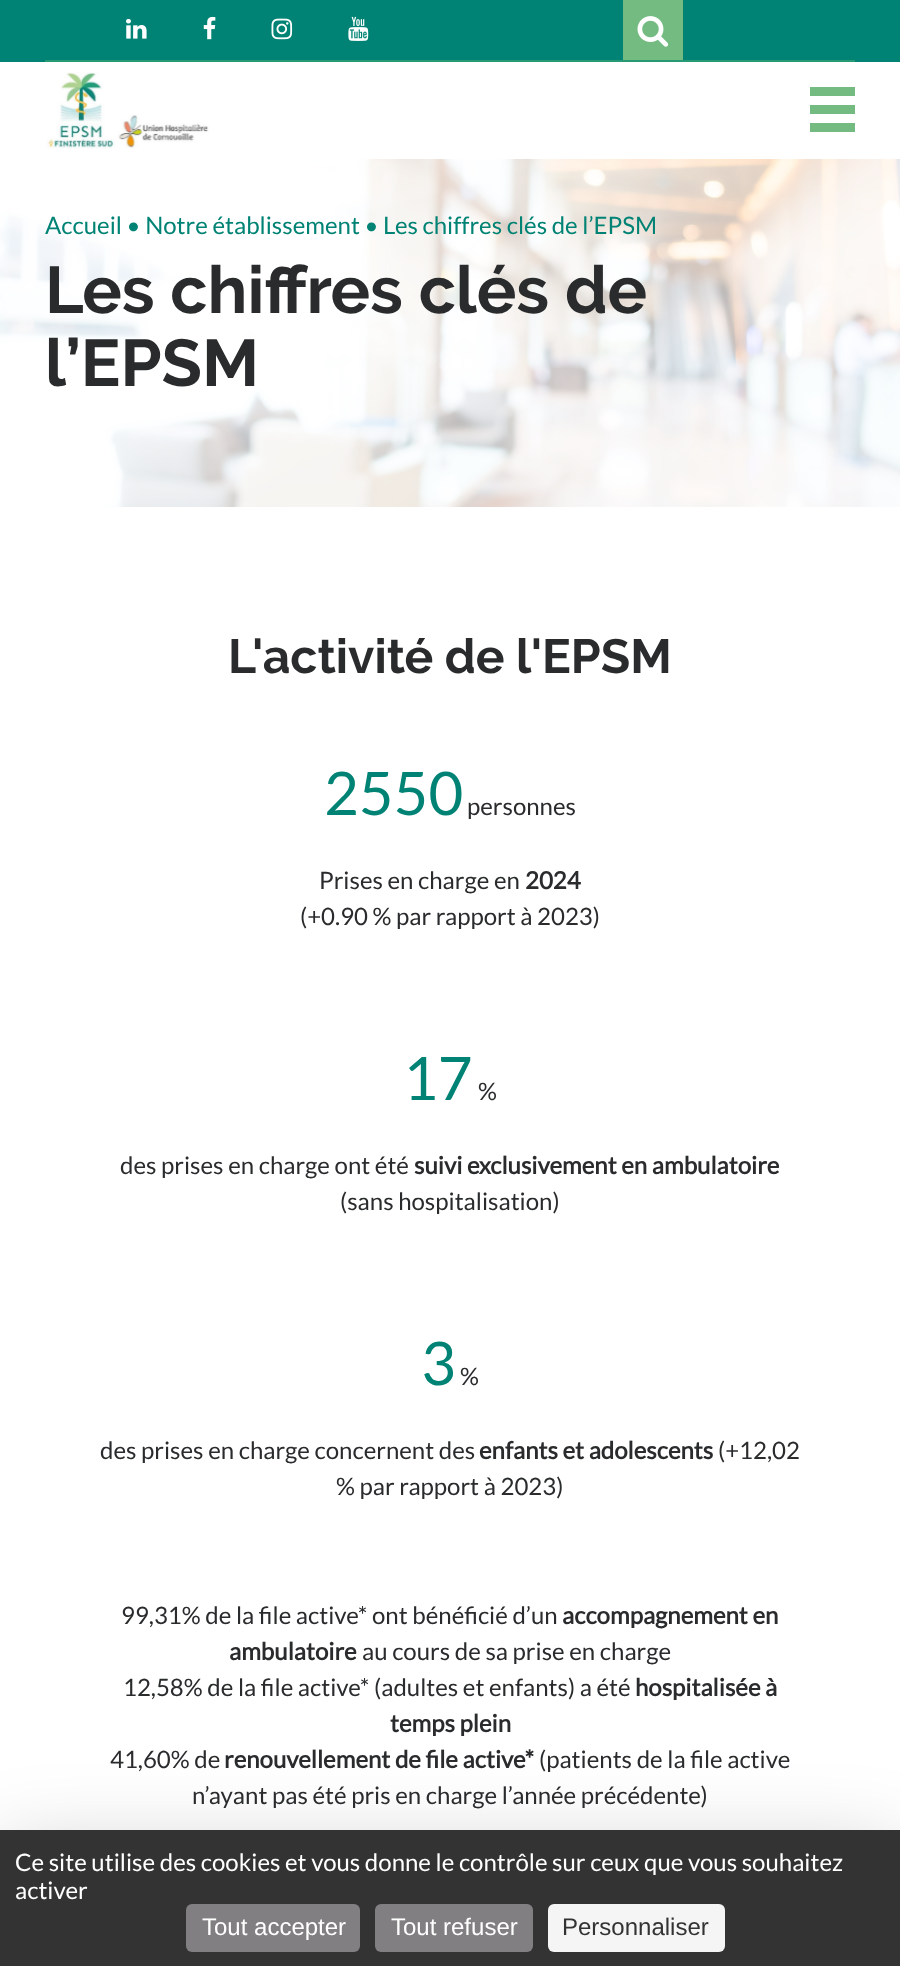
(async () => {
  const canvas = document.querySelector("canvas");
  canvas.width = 900;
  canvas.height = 1966;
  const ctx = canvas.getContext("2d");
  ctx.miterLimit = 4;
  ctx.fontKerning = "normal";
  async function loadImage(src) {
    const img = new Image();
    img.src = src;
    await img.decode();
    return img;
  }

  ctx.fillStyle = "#ffffff";
  ctx.fillRect(0, 0, 900, 1966);
  ctx.fillStyle = "#008374";
  ctx.fillRect(0, 0, 900, 62);
  ctx.fillStyle = "#73bb81";
  ctx.fillRect(623, 0, 60, 60);
  ctx.drawImage(await loadImage("img/1.png"), 637, 16, 32, 31);
  ctx.fillStyle = "#269a74";
  ctx.fillRect(45, 60, 810, 2);
  ctx.drawImage(await loadImage("img/2.png"), 126, 18, 21, 21);
  ctx.drawImage(await loadImage("img/3.png"), 203, 16, 13, 24);
  ctx.drawImage(await loadImage("img/4.png"), 271, 18, 22, 22);
  ctx.drawImage(await loadImage("img/5.png"), 348, 16, 21, 25);
  ctx.drawImage(await loadImage("img/6.png"), 46, 72, 163, 77);
  for (const [x, y, w, h, color] of [
    [810, 87, 45, 9, "#73bb81"],
    [810, 105, 45, 9, "#73bb81"],
    [810, 123, 45, 9, "#73bb81"],
  ]) {
    ctx.fillStyle = color;
    ctx.fillRect(x, y, w, h);
  }
  ctx.drawImage(await loadImage("img/7.png"), 0, 159, 900, 348);
  ctx.fillStyle = "rgba(0, 0, 0, 0.25)";
  ctx.filter = "blur(45px)";
  ctx.beginPath();
  ctx.rect(0, 1860, 900, 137);
  ctx.fill();
  ctx.filter = "none";
  ctx.fillStyle = "#333333";
  ctx.fillRect(0, 1830, 900, 136);
  ctx.fillStyle = "#827f82";
  ctx.beginPath();
  ctx.roundRect(186, 1904, 174, 48, 6);
  ctx.fill();
  ctx.beginPath();
  ctx.roundRect(375, 1904, 158, 48, 6);
  ctx.fill();
  ctx.fillStyle = "#f5f5f5";
  ctx.beginPath();
  ctx.roundRect(548, 1904, 177, 48, 6);
  ctx.fill();
  ctx.font = "24px Lato";
  ctx.fillStyle = "#008374";
  ctx.fillText("Accueil • Notre établissement • Les chiffres clés de l’EPSM", 45, 234);
  ctx.font = "bold 66px Raleway";
  ctx.fillStyle = "#292b2c";
  ctx.fillText("Les chiffres clés de", 45, 313);
  ctx.fillText("l’EPSM", 45, 386);
  ctx.font = "bold 48px Raleway";
  ctx.fillText("L'activité de l'EPSM", 228, 673);
  ctx.font = "60px Lato";
  ctx.fillStyle = "#008374";
  ctx.fillText("2550", 324, 815);
  ctx.font = "24px Lato";
  ctx.fillStyle = "#292b2c";
  ctx.fillText("personnes", 467, 815);
  ctx.fillText("Prises en charge en", 319, 889);
  ctx.font = "bold 24px Lato";
  ctx.fillText("2024", 525, 889);
  ctx.font = "24px Lato";
  ctx.fillText("(+0.90 % par rapport à 2023)", 300, 925);
  ctx.font = "60px Lato";
  ctx.fillStyle = "#008374";
  ctx.fillText("17", 403, 1100);
  ctx.font = "24px Lato";
  ctx.fillStyle = "#292b2c";
  ctx.fillText("%", 478, 1100);
  ctx.fillText("des prises en charge ont été", 120, 1174);
  ctx.font = "bold 24px Lato";
  ctx.fillText("suivi exclusivement en ambulatoire", 414, 1174);
  ctx.font = "24px Lato";
  ctx.fillText("(sans hospitalisation)", 340, 1210);
  ctx.font = "60px Lato";
  ctx.fillStyle = "#008374";
  ctx.fillText("3", 421, 1385);
  ctx.font = "24px Lato";
  ctx.fillStyle = "#292b2c";
  ctx.fillText("%", 460, 1385);
  ctx.fillText("des prises en charge concernent des", 100, 1459);
  ctx.font = "bold 24px Lato";
  ctx.fillText("enfants et adolescents", 479, 1459);
  ctx.font = "24px Lato";
  for (const [text, x, y] of [
    ["(+12,02", 718, 1459],
    ["% par rapport à 2023)", 336, 1495],
    ["99,31% de la file active* ont bénéficié d’un", 121, 1624],
  ]) {
    ctx.fillText(text, x, y);
  }
  ctx.font = "bold 24px Lato";
  ctx.fillText("accompagnement en", 562, 1624);
  ctx.fillText("ambulatoire", 229, 1660);
  ctx.font = "24px Lato";
  ctx.fillText("au cours de sa prise en charge", 362, 1660);
  ctx.fillText("12,58% de la file active* (adultes et enfants) a été", 123, 1696);
  ctx.font = "bold 24px Lato";
  ctx.fillText("hospitalisée à", 635, 1696);
  ctx.fillText("temps plein", 390, 1732);
  ctx.font = "24px Lato";
  ctx.fillText("41,60% de", 110, 1768);
  ctx.font = "bold 24px Lato";
  ctx.fillText("renouvellement de file active*", 224, 1768);
  ctx.font = "24px Lato";
  ctx.fillText("(patients de la file active", 539, 1768);
  ctx.fillText("n’ayant pas été pris en charge l’année précédente)", 192, 1804);
  ctx.fillStyle = "#ffffff";
  ctx.fillText("Ce site utilise des cookies et vous donne le contrôle sur ceux que vous souhaitez", 15, 1871);
  ctx.fillText("activer", 15, 1899);
  ctx.font = "24px Liberation Sans";
  ctx.fillText("Tout accepter", 202, 1935);
  ctx.fillText("Tout refuser", 391, 1935);
  ctx.fillStyle = "#333333";
  ctx.fillText("Personnaliser", 562, 1935);
})();
